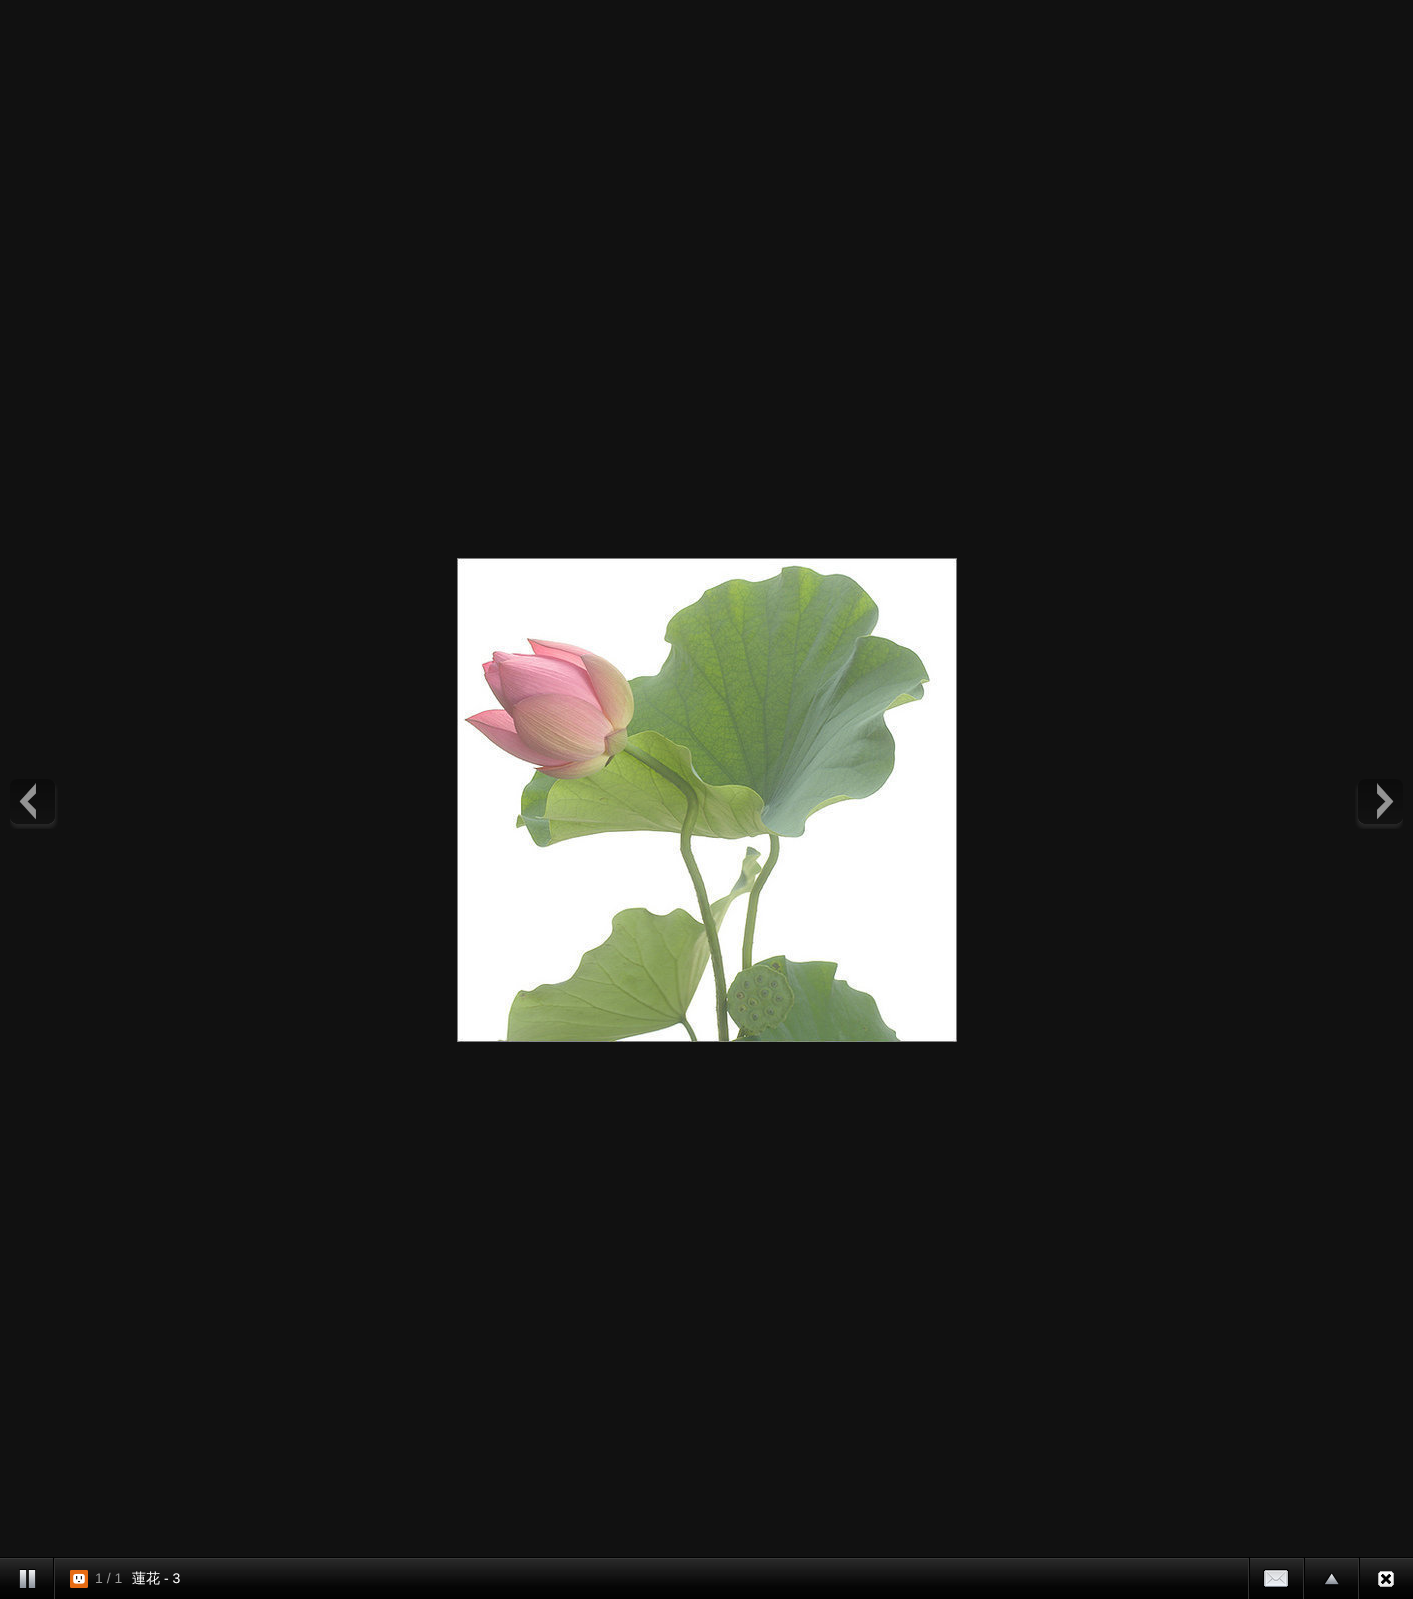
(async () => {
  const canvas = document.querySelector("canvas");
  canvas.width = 1413;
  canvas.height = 1599;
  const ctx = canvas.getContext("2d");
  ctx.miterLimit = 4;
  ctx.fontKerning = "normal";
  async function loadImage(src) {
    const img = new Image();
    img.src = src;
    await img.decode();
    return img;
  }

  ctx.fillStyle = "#111111";
  ctx.fillRect(0, 0, 1413, 1599);
  ctx.drawImage(await loadImage("img/1.png"), 10, 779, 48, 50);
  ctx.drawImage(await loadImage("img/2.png"), 457, 558, 500, 484);
  ctx.drawImage(await loadImage("img/3.png"), 1355, 779, 48, 50);
  ctx.drawImage(await loadImage("img/4.png"), 0, 1557, 1413, 42);
  ctx.fillStyle = "#333333";
  ctx.fillRect(54, 1558, 1, 41);
  ctx.drawImage(await loadImage("img/5.png"), 19, 1558, 35, 36);
  ctx.drawImage(await loadImage("img/6.png"), 70, 1570, 18, 18);
  ctx.fillRect(1248, 1558, 1, 41);
  ctx.drawImage(await loadImage("img/7.png"), 1249, 1558, 40, 36);
  ctx.fillRect(1303, 1558, 1, 41);
  ctx.drawImage(await loadImage("img/8.png"), 1304, 1558, 35, 36);
  ctx.fillRect(1358, 1558, 1, 41);
  ctx.drawImage(await loadImage("img/9.png"), 1359, 1558, 35, 36);
  ctx.font = "14px Liberation Sans";
  ctx.fillStyle = "#999999";
  ctx.fillText("1 / 1", 95, 1583);
  ctx.font = "500 14px WenQuanYi Zen Hei";
  ctx.fillStyle = "#ffffff";
  ctx.fillText("蓮花", 132, 1583);
  ctx.font = "14px Liberation Sans";
  ctx.fillText("- 3", 164, 1583);
})();
